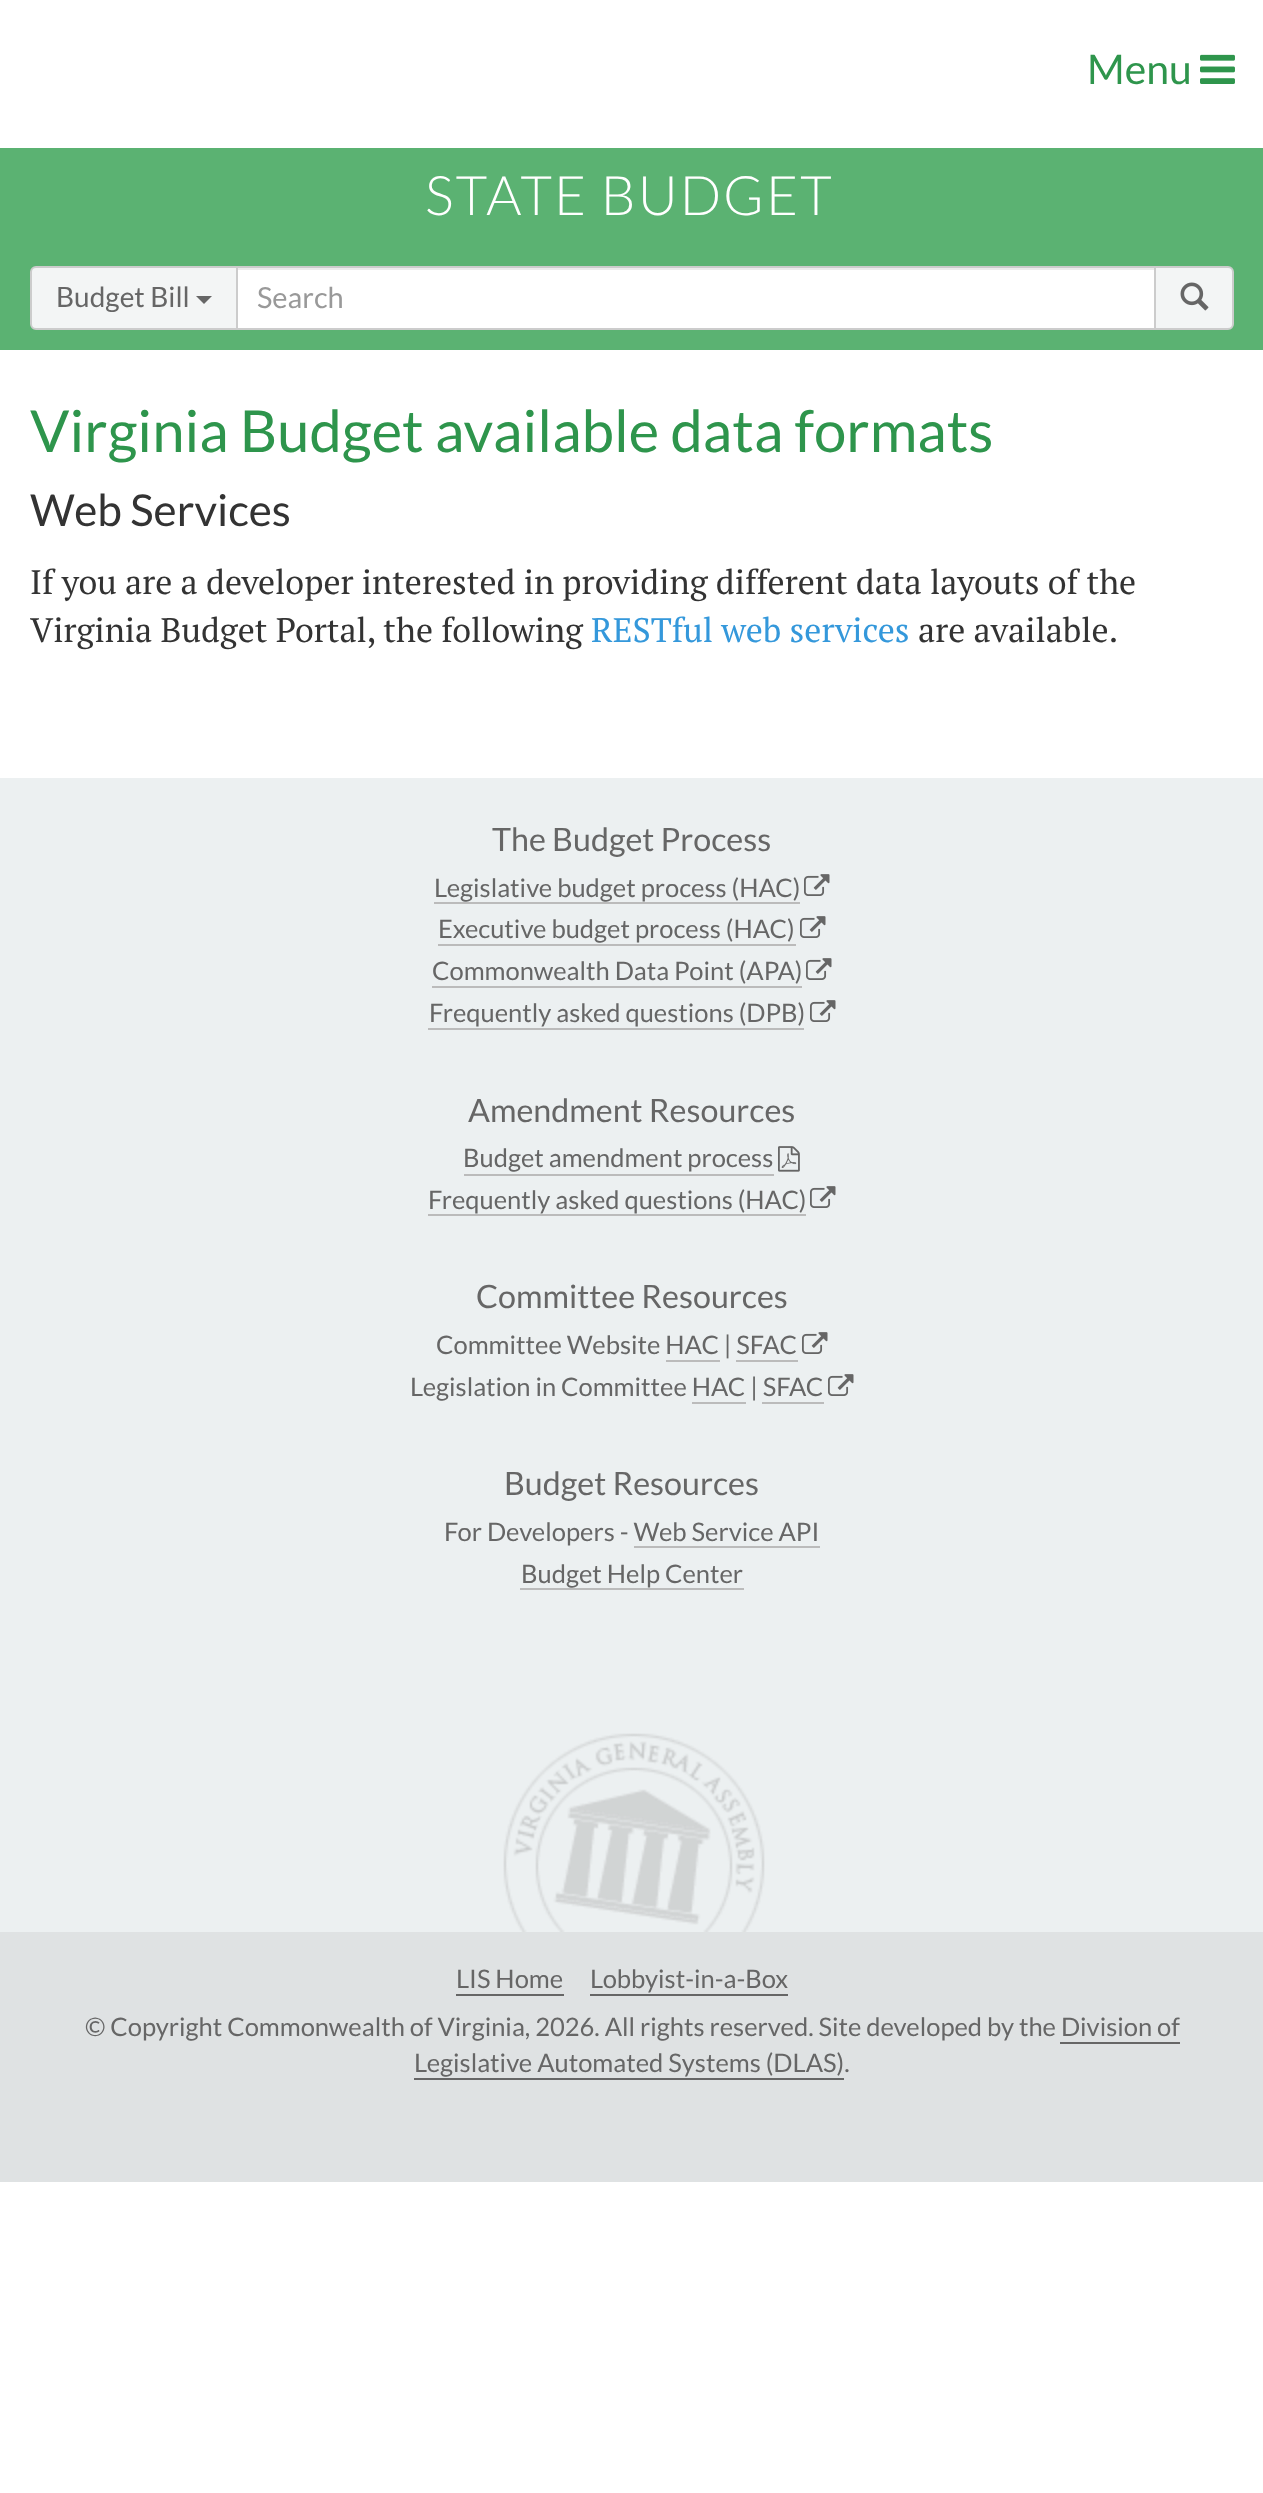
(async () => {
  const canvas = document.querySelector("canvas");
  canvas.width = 1263;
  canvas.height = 2493;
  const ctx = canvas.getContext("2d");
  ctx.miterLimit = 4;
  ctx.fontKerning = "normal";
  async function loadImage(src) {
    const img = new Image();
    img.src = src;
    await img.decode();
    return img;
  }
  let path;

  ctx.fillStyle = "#ffffff";
  ctx.fillRect(0, 0, 1263, 2493);
  ctx.drawImage(await loadImage("img/1.png"), 1200, 54, 35, 30);
  for (const [x, y, w, h, color] of [
    [0, 148, 1263, 202, "#5bb272"],
    [238, 270, 916, 58, "#ffffff"],
    [238, 268, 916, 2, "#ececec"],
  ]) {
    ctx.fillStyle = color;
    ctx.fillRect(x, y, w, h);
  }
  ctx.strokeStyle = "#cccccc";
  ctx.lineWidth = 2;
  ctx.strokeRect(237, 267, 918, 62);
  ctx.fillStyle = "#f3f5f5";
  ctx.beginPath();
  ctx.roundRect(31, 267, 206, 62, [5, 0, 0, 5]);
  ctx.fill();
  ctx.stroke();
  ctx.fillStyle = "#666666";
  path = new Path2D("M196 296H212L204 304Z");
  ctx.fill(path);
  ctx.fillStyle = "#f3f5f5";
  ctx.beginPath();
  ctx.roundRect(1155, 267, 78, 62, [0, 5, 5, 0]);
  ctx.fill();
  ctx.stroke();
  ctx.drawImage(await loadImage("img/2.png"), 1180, 282, 29, 29);
  ctx.fillStyle = "#ecf0f1";
  ctx.fillRect(0, 778, 1263, 1154);
  ctx.fillStyle = "#bbbbbb";
  ctx.fillRect(434, 902, 366, 2);
  ctx.drawImage(await loadImage("img/3.png"), 804, 874, 26, 22);
  ctx.fillRect(438, 944, 358, 2);
  ctx.drawImage(await loadImage("img/3.png"), 800, 916, 26, 22);
  ctx.fillRect(432, 986, 370, 2);
  ctx.drawImage(await loadImage("img/3.png"), 806, 958, 26, 22);
  ctx.fillRect(428, 1028, 376, 2);
  ctx.drawImage(await loadImage("img/3.png"), 810, 1000, 26, 22);
  ctx.fillRect(464, 1174, 310, 2);
  ctx.drawImage(await loadImage("img/4.png"), 778, 1146, 22, 26);
  ctx.fillRect(428, 1214, 378, 2);
  ctx.drawImage(await loadImage("img/3.png"), 810, 1186, 26, 22);
  ctx.drawImage(await loadImage("img/3.png"), 802, 1332, 26, 22);
  ctx.fillRect(666, 1360, 54, 2);
  ctx.fillRect(736, 1360, 62, 2);
  ctx.drawImage(await loadImage("img/3.png"), 828, 1374, 26, 22);
  for (const [x, y, w, h, color] of [
    [692, 1402, 54, 2, "#bbbbbb"],
    [762, 1402, 62, 2, "#bbbbbb"],
    [634, 1546, 186, 2, "#bbbbbb"],
    [520, 1588, 224, 2, "#bbbbbb"],
  ]) {
    ctx.fillStyle = color;
    ctx.fillRect(x, y, w, h);
  }
  ctx.drawImage(await loadImage("img/5.png"), 503, 1733, 262, 199);
  for (const [x, y, w, h, color] of [
    [0, 1932, 1263, 250, "#dfe2e3"],
    [456, 1994, 108, 2, "#666666"],
    [590, 1994, 198, 2, "#666666"],
    [1060, 2042, 120, 2, "#666666"],
    [414, 2078, 430, 2, "#666666"],
  ]) {
    ctx.fillStyle = color;
    ctx.fillRect(x, y, w, h);
  }
  ctx.font = "41px Lato";
  ctx.fillStyle = "#2e954c";
  ctx.fillText("Menu", 1087, 84);
  ctx.letterSpacing = "2px";
  ctx.font = "300 54.5px Lato";
  ctx.fillStyle = "#ffffff";
  ctx.fillText("STATE BUDGET", 425, 215);
  ctx.letterSpacing = "0px";
  ctx.font = "28px Lato";
  ctx.fillStyle = "#666666";
  ctx.fillText("Budget Bill", 56, 307);
  ctx.font = "29px Lato";
  ctx.fillStyle = "#999999";
  ctx.fillText("Search", 257, 308);
  ctx.font = "58px Lato";
  ctx.fillStyle = "#2e954c";
  ctx.fillText("Virginia Budget available data formats", 30, 452);
  ctx.font = "44px Lato";
  ctx.fillStyle = "#333333";
  ctx.fillText("Web Services", 30, 526);
  ctx.font = "34px PT Serif";
  ctx.fillText("If you are a developer interested in providing different data layouts of the", 30, 594);
  ctx.fillText("Virginia Budget Portal, the following", 30, 642);
  ctx.fillStyle = "#3498db";
  ctx.fillText("RESTful web services", 591, 642);
  ctx.fillStyle = "#333333";
  ctx.fillText("are available.", 918, 642);
  ctx.font = "32.25px Lato";
  ctx.fillStyle = "#666666";
  ctx.fillText("The Budget Process", 492, 851);
  ctx.font = "25.5px Lato";
  for (const [text, x, y] of [
    ["Legislative budget process (HAC)", 434, 897],
    ["Executive budget process (HAC)", 438, 938],
    ["Commonwealth Data Point (APA)", 432, 980],
    ["Frequently asked questions (DPB)", 429, 1022],
  ]) {
    ctx.fillText(text, x, y);
  }
  ctx.font = "32.25px Lato";
  ctx.fillText("Amendment Resources", 468, 1122);
  ctx.font = "25.5px Lato";
  ctx.fillText("Budget amendment process", 463, 1167);
  ctx.fillText("Frequently asked questions (HAC)", 428, 1209);
  ctx.font = "32.25px Lato";
  ctx.fillText("Committee Resources", 476, 1308);
  ctx.font = "25.5px Lato";
  ctx.fillText("Committee Website HAC | SFAC", 436, 1354);
  ctx.fillText("Legislation in Committee HAC | SFAC", 410, 1396);
  ctx.font = "32.25px Lato";
  ctx.fillText("Budget Resources", 504, 1495);
  ctx.font = "25.5px Lato";
  for (const [text, x, y] of [
    ["For Developers - Web Service API", 444, 1541],
    ["Budget Help Center", 521, 1583],
    ["LIS Home", 456, 1988],
    ["Lobbyist-in-a-Box", 590, 1988],
    ["© Copyright Commonwealth of Virginia, 2026. All rights reserved. Site developed by the Division of", 85, 2036],
    ["Legislative Automated Systems (DLAS).", 414, 2072],
  ]) {
    ctx.fillText(text, x, y);
  }
})();
